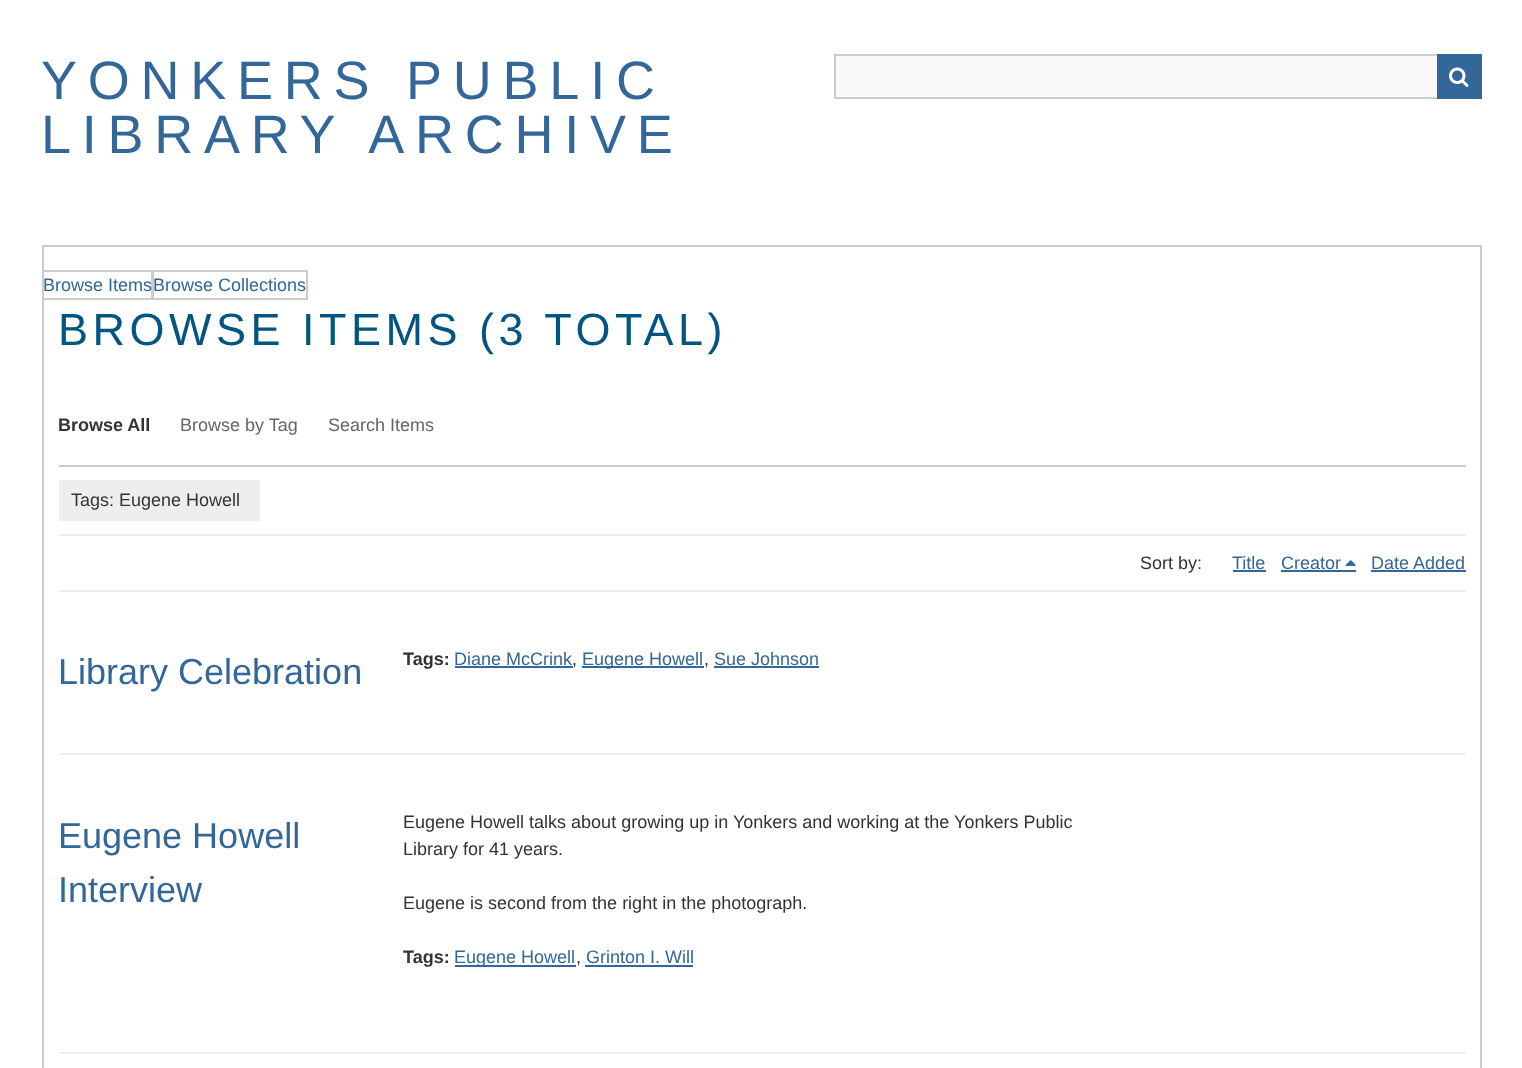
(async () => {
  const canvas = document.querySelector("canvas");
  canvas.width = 1522;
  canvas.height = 1068;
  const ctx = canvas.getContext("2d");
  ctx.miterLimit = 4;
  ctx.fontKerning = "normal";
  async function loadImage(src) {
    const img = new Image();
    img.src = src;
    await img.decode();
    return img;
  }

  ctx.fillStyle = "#ffffff";
  ctx.fillRect(0, 0, 1522, 1068);
  ctx.fillStyle = "#fafafa";
  ctx.fillRect(836, 56, 601, 41);
  ctx.strokeStyle = "#cccccc";
  ctx.lineWidth = 2;
  ctx.strokeRect(835, 55, 646, 43);
  ctx.fillStyle = "#336699";
  ctx.fillRect(1437, 54, 45, 45);
  ctx.drawImage(await loadImage("img/1.png"), 1449, 67, 20, 20);
  ctx.strokeRect(43, 246, 1438, 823);
  ctx.strokeRect(43, 271, 109, 28);
  ctx.strokeRect(153, 271, 154, 28);
  for (const [x, y, w, h, color] of [
    [59, 465, 1407, 2, "#cccccc"],
    [59, 534, 1407, 2, "#eeeeee"],
    [59, 480, 201, 41, "#eeeeee"],
    [1233, 570, 33, 2, "#336699"],
    [1281, 570, 75, 2, "#336699"],
  ]) {
    ctx.fillStyle = color;
    ctx.fillRect(x, y, w, h);
  }
  ctx.drawImage(await loadImage("img/2.png"), 1345, 560, 11, 6);
  for (const [x, y, w, h, color] of [
    [1371, 570, 95, 2, "#336699"],
    [59, 590, 1407, 2, "#eeeeee"],
    [59, 753, 1407, 2, "#eeeeee"],
    [455, 666, 118, 2, "#336699"],
    [582, 666, 122, 2, "#336699"],
    [714, 666, 105, 2, "#336699"],
    [59, 1052, 1407, 2, "#eeeeee"],
    [455, 965, 121, 2, "#336699"],
    [585, 965, 108, 2, "#336699"],
  ]) {
    ctx.fillStyle = color;
    ctx.fillRect(x, y, w, h);
  }
  ctx.letterSpacing = "10.75px";
  ctx.font = "54px Liberation Sans";
  ctx.fillText("YONKERS PUBLIC", 41, 99);
  ctx.fillText("LIBRARY ARCHIVE", 41, 153);
  ctx.letterSpacing = "0px";
  ctx.font = "18px Liberation Sans";
  ctx.fillText("Browse Items", 43, 291);
  ctx.fillText("Browse Collections", 153, 291);
  ctx.letterSpacing = "4.5px";
  ctx.font = "45px Liberation Sans";
  ctx.fillStyle = "#015581";
  ctx.fillText("BROWSE ITEMS (3 TOTAL)", 58, 345);
  ctx.letterSpacing = "0px";
  ctx.font = "bold 18px Liberation Sans";
  ctx.fillStyle = "#333333";
  ctx.fillText("Browse All", 58, 431);
  ctx.font = "18px Liberation Sans";
  ctx.fillStyle = "#666666";
  ctx.fillText("Browse by Tag", 180, 431);
  ctx.fillText("Search Items", 328, 431);
  ctx.fillStyle = "#333333";
  ctx.fillText("Tags: Eugene Howell", 71, 506);
  ctx.fillText("Sort by:", 1140, 569);
  ctx.fillStyle = "#336699";
  for (const [text, x, y] of [
    ["Title", 1232, 569],
    ["Creator", 1281, 569],
    ["Date Added", 1371, 569],
  ]) {
    ctx.fillText(text, x, y);
  }
  ctx.font = "36px Liberation Sans";
  ctx.fillText("Library Celebration", 58, 684);
  ctx.font = "bold 18px Liberation Sans";
  ctx.fillStyle = "#333333";
  ctx.fillText("Tags:", 403, 665);
  ctx.font = "18px Liberation Sans";
  ctx.fillStyle = "#336699";
  ctx.fillText("Diane McCrink", 454, 665);
  ctx.fillStyle = "#333333";
  ctx.fillText(",", 572, 665);
  ctx.fillStyle = "#336699";
  ctx.fillText("Eugene Howell", 582, 665);
  ctx.fillStyle = "#333333";
  ctx.fillText(",", 704, 665);
  ctx.fillStyle = "#336699";
  ctx.fillText("Sue Johnson", 714, 665);
  ctx.font = "36px Liberation Sans";
  ctx.fillText("Eugene Howell", 58, 848);
  ctx.fillText("Interview", 58, 902);
  ctx.font = "18px Liberation Sans";
  ctx.fillStyle = "#333333";
  for (const [text, x, y] of [
    ["Eugene Howell talks about growing up in Yonkers and working at the Yonkers Public", 403, 828],
    ["Library for 41 years.", 403, 855],
    ["Eugene is second from the right in the photograph.", 403, 909],
  ]) {
    ctx.fillText(text, x, y);
  }
  ctx.font = "bold 18px Liberation Sans";
  ctx.fillText("Tags:", 403, 963);
  ctx.font = "18px Liberation Sans";
  ctx.fillStyle = "#336699";
  ctx.fillText("Eugene Howell", 454, 963);
  ctx.fillStyle = "#333333";
  ctx.fillText(",", 576, 963);
  ctx.fillStyle = "#336699";
  ctx.fillText("Grinton I. Will", 586, 963);
})();
